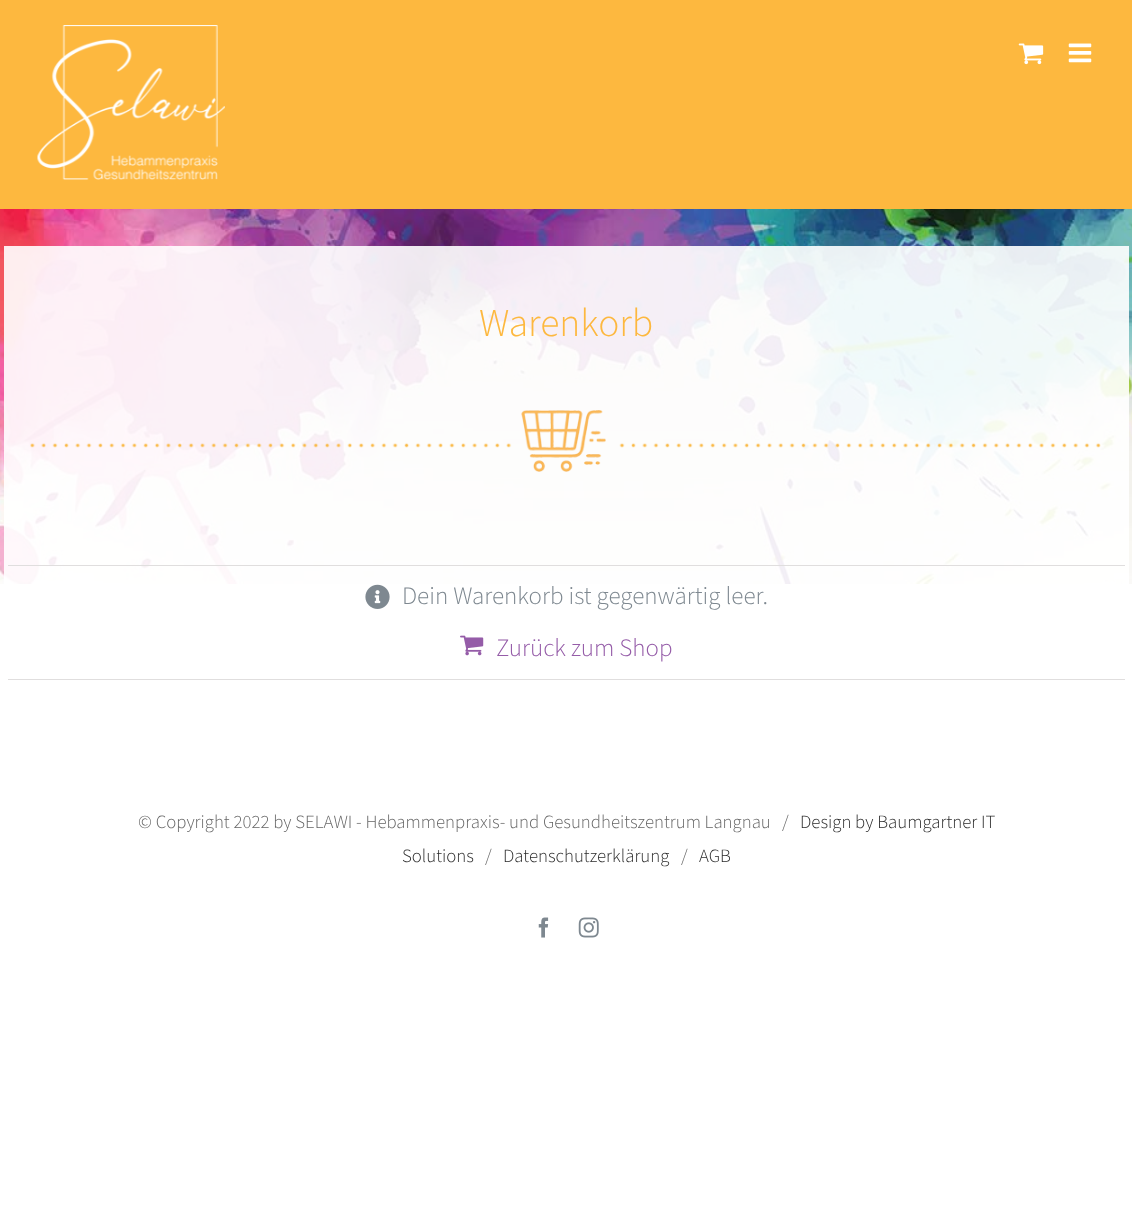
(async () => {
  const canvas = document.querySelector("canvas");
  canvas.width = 1132;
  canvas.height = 1216;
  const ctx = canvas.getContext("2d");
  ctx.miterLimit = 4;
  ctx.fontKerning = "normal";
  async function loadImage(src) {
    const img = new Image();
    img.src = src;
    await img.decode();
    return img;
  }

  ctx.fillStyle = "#ffffff";
  ctx.fillRect(0, 0, 1132, 1216);
  ctx.fillStyle = "#fdb83f";
  ctx.fillRect(0, 0, 1132, 209);
  ctx.drawImage(await loadImage("img/1.png"), 37, 25, 188, 155);
  ctx.drawImage(await loadImage("img/2.png"), 1018, 43, 26, 22);
  ctx.drawImage(await loadImage("img/3.png"), 1068, 43, 24, 20);
  ctx.drawImage(await loadImage("img/4.png"), 0, 209, 1132, 375);
  ctx.fillStyle = "rgba(255, 255, 255, 0.9)";
  ctx.fillRect(4, 246, 1125, 319);
  ctx.drawImage(await loadImage("img/5.png"), 30, 410, 1071, 62);
  ctx.fillRect(4, 565, 1125, 19);
  ctx.fillStyle = "#e0dede";
  ctx.fillRect(8, 565, 1117, 1);
  ctx.drawImage(await loadImage("img/6.png"), 365, 584, 25, 25);
  ctx.fillRect(8, 679, 1117, 1);
  ctx.drawImage(await loadImage("img/7.png"), 460, 635, 24, 21);
  ctx.drawImage(await loadImage("img/8.png"), 538, 917, 11, 21);
  ctx.drawImage(await loadImage("img/9.png"), 578, 917, 21, 21);
  ctx.font = "300 39.5px 'Source Sans 3'";
  ctx.fillStyle = "#fdb83f";
  ctx.fillText("Warenkorb", 479, 336);
  ctx.font = "300 25px 'Source Sans 3'";
  ctx.fillStyle = "#7e8890";
  ctx.fillText("Dein Warenkorb ist gegenwärtig leer.", 402, 604);
  ctx.fillStyle = "#955ca8";
  ctx.fillText("Zurück zum Shop", 496, 656);
  ctx.font = "300 18.75px 'Source Sans 3'";
  ctx.fillStyle = "#666666";
  ctx.fillText("© Copyright 2022 by SELAWI - Hebammenpraxis- und Gesundheitszentrum Langnau   /", 138, 828);
  ctx.fillStyle = "#2b2b2b";
  ctx.fillText("Design by Baumgartner IT", 800, 828);
  ctx.fillText("Solutions", 402, 862);
  ctx.fillStyle = "#666666";
  ctx.fillText("/", 485, 862);
  ctx.fillStyle = "#2b2b2b";
  ctx.fillText("Datenschutzerklärung", 503, 862);
  ctx.fillStyle = "#666666";
  ctx.fillText("/", 681, 862);
  ctx.fillStyle = "#2b2b2b";
  ctx.fillText("AGB", 699, 862);
})();
